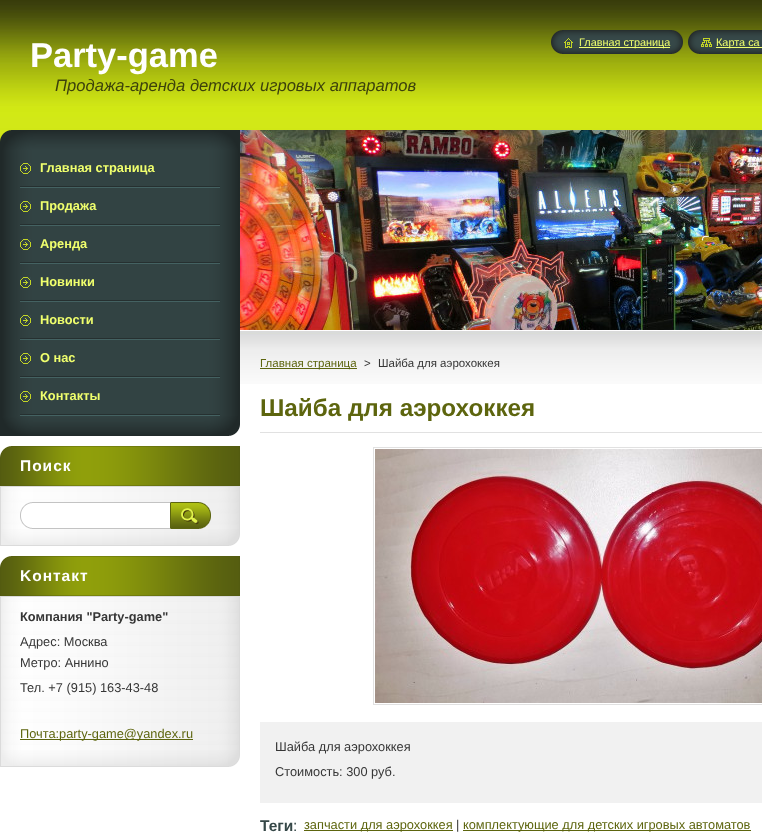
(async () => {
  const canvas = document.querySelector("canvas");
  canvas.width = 762;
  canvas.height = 837;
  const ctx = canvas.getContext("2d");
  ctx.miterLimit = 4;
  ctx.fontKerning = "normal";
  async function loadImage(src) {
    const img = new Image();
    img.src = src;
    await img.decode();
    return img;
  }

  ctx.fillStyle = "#ffffff";
  ctx.fillRect(0, 0, 762, 837);
  ctx.drawImage(await loadImage("img/1.png"), 0, 0, 762, 384);
  ctx.drawImage(await loadImage("img/2.png"), 551, 30, 13, 24);
  ctx.drawImage(await loadImage("img/3.png"), 564, 30, 119, 24);
  ctx.drawImage(await loadImage("img/4.png"), 564, 38, 9, 10);
  ctx.fillStyle = "#f0ff6d";
  ctx.fillRect(579, 47, 91, 1);
  ctx.drawImage(await loadImage("img/2.png"), 688, 30, 13, 24);
  ctx.drawImage(await loadImage("img/5.png"), 701, 30, 61, 24);
  ctx.drawImage(await loadImage("img/6.png"), 701, 38, 11, 9);
  ctx.fillRect(716, 47, 46, 1);
  ctx.drawImage(await loadImage("img/7.png"), 0, 130, 240, 20);
  ctx.drawImage(await loadImage("img/8.png"), 0, 416, 240, 20);
  ctx.drawImage(await loadImage("img/9.png"), 0, 150, 240, 266);
  ctx.drawImage(await loadImage("img/10.png"), 20, 186, 200, 2);
  ctx.drawImage(await loadImage("img/11.png"), 20, 163, 11, 11);
  ctx.drawImage(await loadImage("img/10.png"), 20, 224, 200, 2);
  ctx.drawImage(await loadImage("img/11.png"), 20, 201, 11, 11);
  ctx.drawImage(await loadImage("img/10.png"), 20, 262, 200, 2);
  ctx.drawImage(await loadImage("img/11.png"), 20, 239, 11, 11);
  ctx.drawImage(await loadImage("img/10.png"), 20, 300, 200, 2);
  ctx.drawImage(await loadImage("img/11.png"), 20, 277, 11, 11);
  ctx.drawImage(await loadImage("img/10.png"), 20, 338, 200, 2);
  ctx.drawImage(await loadImage("img/11.png"), 20, 315, 11, 11);
  ctx.drawImage(await loadImage("img/10.png"), 20, 376, 200, 2);
  ctx.drawImage(await loadImage("img/11.png"), 20, 353, 11, 11);
  ctx.drawImage(await loadImage("img/10.png"), 20, 414, 200, 2);
  ctx.drawImage(await loadImage("img/11.png"), 20, 391, 11, 11);
  ctx.drawImage(await loadImage("img/12.png"), 0, 529, 240, 17);
  ctx.drawImage(await loadImage("img/13.png"), 0, 446, 240, 40);
  ctx.drawImage(await loadImage("img/14.png"), 0, 487, 240, 42);
  ctx.fillStyle = "#dbdbdb";
  ctx.fillRect(0, 486, 240, 1);
  ctx.drawImage(await loadImage("img/15.png"), 20, 502, 150, 27);
  ctx.drawImage(await loadImage("img/16.png"), 170, 502, 41, 27);
  ctx.drawImage(await loadImage("img/12.png"), 0, 750, 240, 17);
  ctx.drawImage(await loadImage("img/13.png"), 0, 556, 240, 40);
  ctx.drawImage(await loadImage("img/17.png"), 0, 597, 240, 153);
  ctx.fillRect(0, 596, 240, 1);
  ctx.fillStyle = "#5d650e";
  ctx.fillRect(20, 739, 173, 1);
  ctx.drawImage(await loadImage("img/18.png"), 240, 130, 522, 200);
  ctx.fillRect(260, 368, 97, 1);
  ctx.fillStyle = "#e1e1e1";
  ctx.fillRect(260, 432, 502, 1);
  ctx.strokeStyle = "#e1e1e1";
  ctx.strokeRect(373.5, 447.5, 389, 257);
  ctx.drawImage(await loadImage("img/19.png"), 375, 449, 387, 254);
  for (const [x, y, w, h, color] of [
    [260, 722, 502, 81, "#f1f1f1"],
    [304, 830, 149, 1, "#5d650e"],
    [463, 830, 288, 1, "#5d650e"],
  ]) {
    ctx.fillStyle = color;
    ctx.fillRect(x, y, w, h);
  }
  ctx.font = "bold 34.5px Liberation Sans";
  ctx.fillStyle = "#ffffff";
  ctx.fillText("Party-game", 30, 67);
  ctx.font = "italic 16.6px Liberation Sans";
  ctx.fillStyle = "#3c410c";
  ctx.fillText("Продажа-аренда детских игровых аппаратов", 55, 91);
  ctx.font = "10.9px Liberation Sans";
  ctx.fillStyle = "#f0ff6d";
  ctx.fillText("Главная страница", 579, 46);
  ctx.fillText("Карта са", 716, 46);
  ctx.font = "bold 12.8px Liberation Sans";
  for (const [text, x, y] of [
    ["Главная страница", 40, 172],
    ["Продажа", 40, 210],
    ["Аренда", 40, 248],
    ["Новинки", 40, 286],
    ["Новости", 40, 324],
    ["О нас", 40, 362],
    ["Контакты", 40, 400],
  ]) {
    ctx.fillText(text, x, y);
  }
  ctx.letterSpacing = "1px";
  ctx.font = "bold 15.5px Liberation Sans";
  ctx.fillStyle = "#ffffff";
  ctx.fillText("Поиск", 20, 471);
  ctx.fillText("Koнтакт", 20, 581);
  ctx.letterSpacing = "0px";
  ctx.font = "bold 12.8px Liberation Sans";
  ctx.fillStyle = "#363636";
  ctx.fillText("Компания \"Party-game\"", 20, 621);
  ctx.font = "12.8px Liberation Sans";
  for (const [text, x, y] of [
    ["Адрес: Москва", 20, 646],
    ["Метро: Аннино", 20, 667],
    ["Тел. +7 (915) 163-43-48", 20, 692],
  ]) {
    ctx.fillText(text, x, y);
  }
  ctx.fillStyle = "#5d650e";
  ctx.fillText("Почта:party-game@yandex.ru", 20, 738);
  ctx.font = "11.5px Liberation Sans";
  ctx.fillText("Главная страница", 260, 367);
  ctx.fillStyle = "#363636";
  ctx.fillText(">", 364, 367);
  ctx.fillText("Шайба для аэрохоккея", 378, 367);
  ctx.font = "bold 24.25px Liberation Sans";
  ctx.fillStyle = "#5d650e";
  ctx.fillText("Шайба для аэрохоккея", 260, 416);
  ctx.font = "12.8px Liberation Sans";
  ctx.fillStyle = "#363636";
  ctx.fillText("Шайба для аэрохоккея", 275, 751);
  ctx.fillText("Стоимость: 300 руб.", 275, 776);
  ctx.font = "bold 15.5px Liberation Sans";
  ctx.fillStyle = "#364848";
  ctx.fillText("Теги", 260, 831);
  ctx.font = "15.5px Liberation Sans";
  ctx.fillText(":", 293, 831);
  ctx.font = "12.8px Liberation Sans";
  ctx.fillStyle = "#5d650e";
  ctx.fillText("запчасти для аэрохоккея", 304, 829);
  ctx.fillStyle = "#363636";
  ctx.fillText("|", 456, 829);
  ctx.fillStyle = "#5d650e";
  ctx.fillText("комплектующие для детских игровых автоматов", 463, 829);
})();
